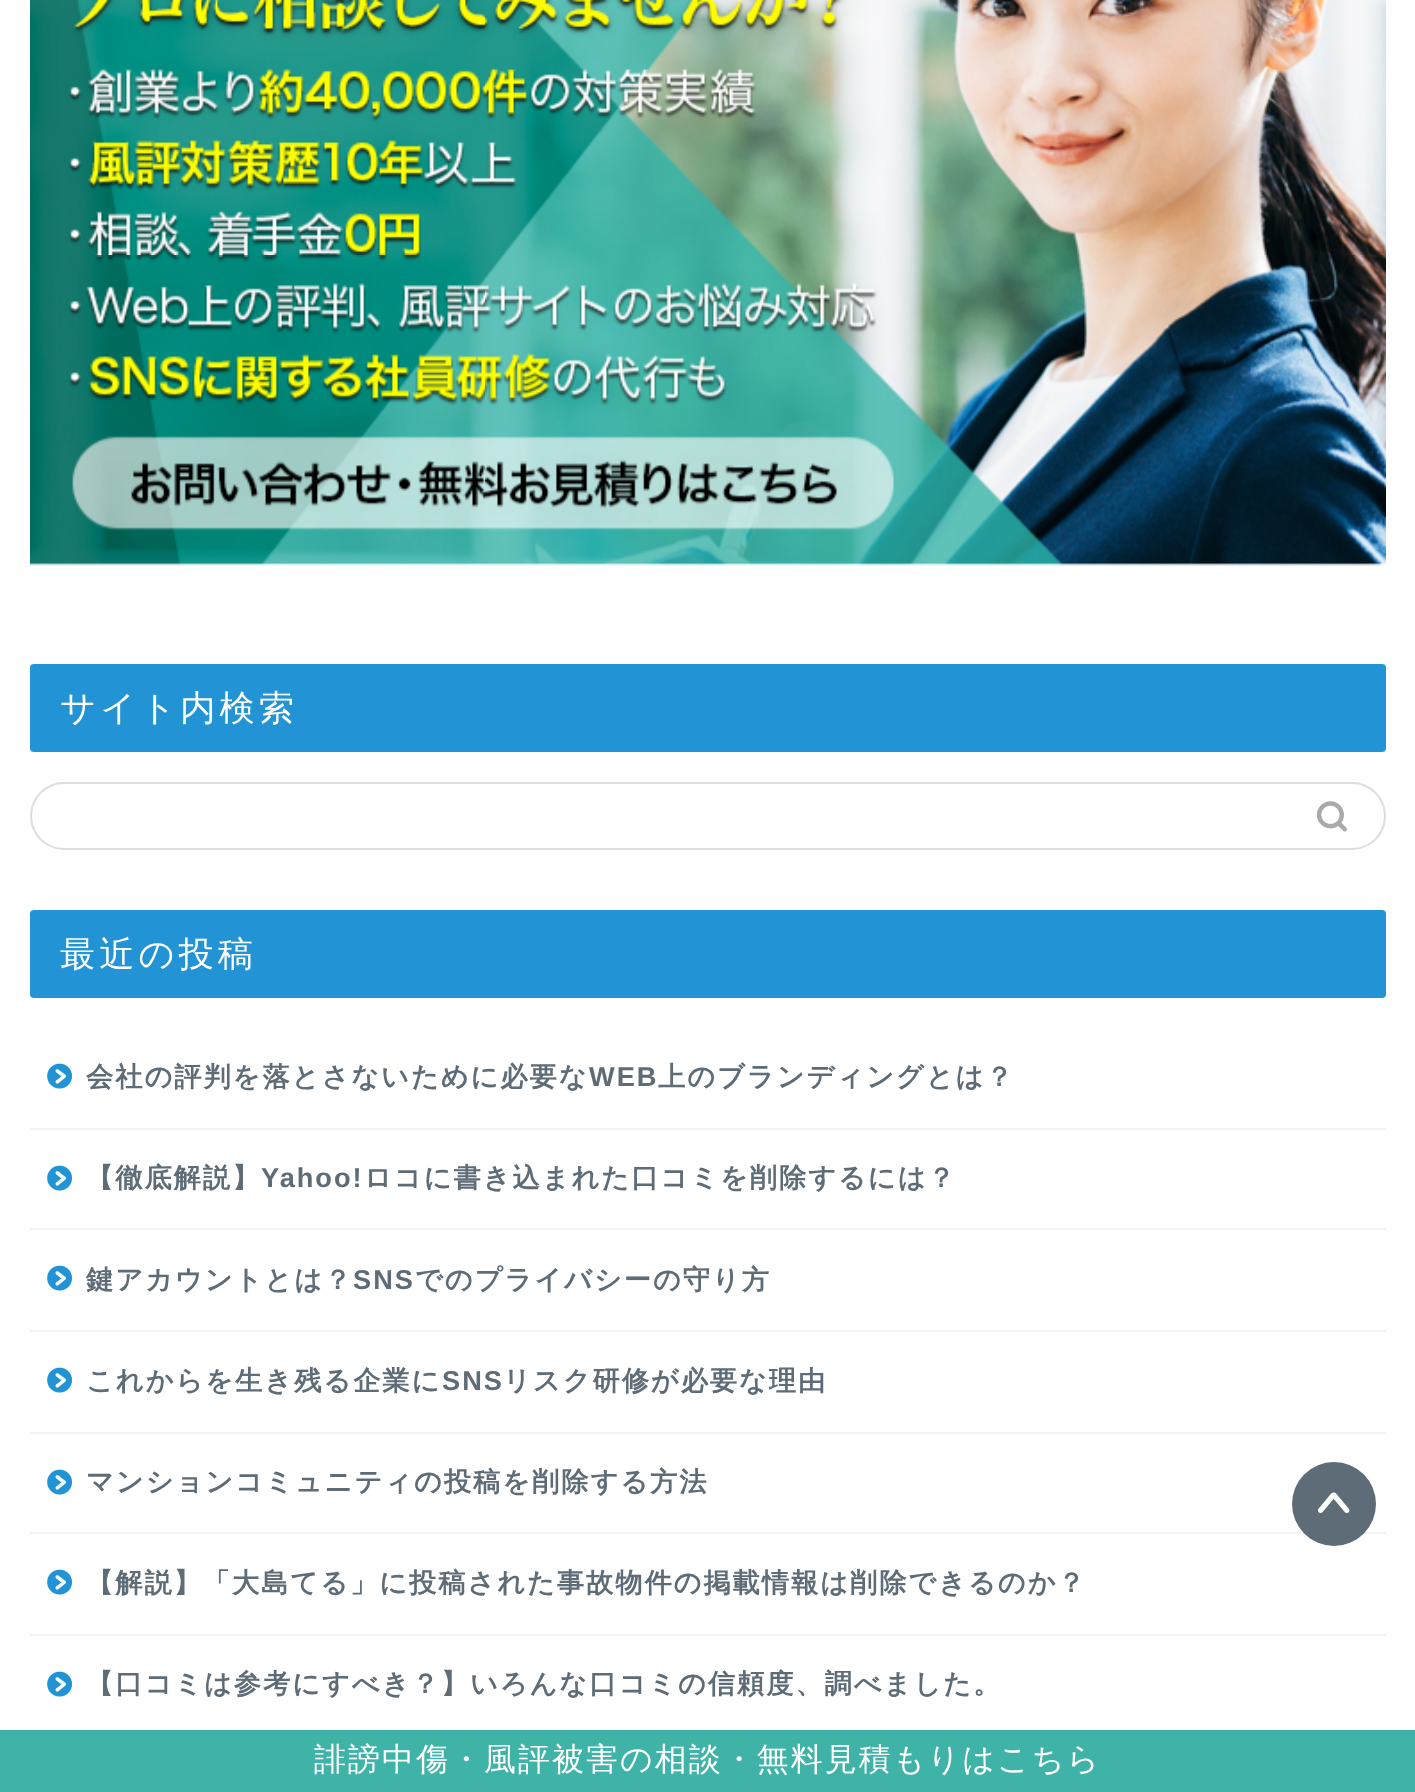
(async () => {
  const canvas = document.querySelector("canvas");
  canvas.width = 1415;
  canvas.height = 1792;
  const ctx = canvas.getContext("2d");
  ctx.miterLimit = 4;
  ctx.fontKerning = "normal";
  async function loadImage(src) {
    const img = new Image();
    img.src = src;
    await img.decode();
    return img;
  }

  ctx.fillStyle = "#ffffff";
  ctx.fillRect(0, 0, 1415, 1792);
  ctx.drawImage(await loadImage("img/1.png"), 30, 0, 1356, 566);
  ctx.fillStyle = "#2294d6";
  ctx.beginPath();
  ctx.roundRect(30, 664, 1356, 88, 4);
  ctx.fill();
  ctx.beginPath();
  ctx.roundRect(31, 783, 1354, 66, 33);
  ctx.strokeStyle = "#dddddd";
  ctx.lineWidth = 2;
  ctx.stroke();
  ctx.drawImage(await loadImage("img/2.png"), 1316, 801, 31, 31);
  ctx.beginPath();
  ctx.roundRect(30, 910, 1356, 88, 4);
  ctx.fill();
  ctx.fillStyle = "#f2f2f2";
  ctx.fillRect(30, 1128, 1356, 2);
  ctx.drawImage(await loadImage("img/3.png"), 47, 1063, 26, 26);
  ctx.fillRect(30, 1228, 1356, 2);
  ctx.drawImage(await loadImage("img/3.png"), 47, 1165, 26, 26);
  ctx.fillRect(30, 1330, 1356, 2);
  ctx.drawImage(await loadImage("img/3.png"), 47, 1265, 26, 26);
  ctx.fillRect(30, 1432, 1356, 2);
  ctx.drawImage(await loadImage("img/3.png"), 47, 1367, 26, 26);
  ctx.fillRect(30, 1532, 1356, 2);
  ctx.drawImage(await loadImage("img/3.png"), 47, 1469, 26, 26);
  ctx.fillRect(30, 1634, 1356, 2);
  ctx.drawImage(await loadImage("img/3.png"), 47, 1569, 26, 26);
  ctx.drawImage(await loadImage("img/3.png"), 47, 1671, 26, 26);
  ctx.fillStyle = "#5e6c77";
  ctx.beginPath();
  ctx.arc(1334, 1504, 42, 0, Math.PI * 2);
  ctx.fill();
  ctx.drawImage(await loadImage("img/4.png"), 1318, 1492, 32, 21);
  ctx.fillStyle = "#3fb3a8";
  ctx.fillRect(0, 1730, 1415, 62);
  ctx.letterSpacing = "4px";
  ctx.font = "500 35.25px WenQuanYi Zen Hei";
  ctx.fillStyle = "#ffffff";
  ctx.fillText("サイト内検索", 60, 720);
  ctx.fillText("最近の投稿", 60, 966);
  ctx.letterSpacing = "2px";
  ctx.font = "bold 27.2px WenQuanYi Zen Hei";
  ctx.fillStyle = "#5e6c77";
  ctx.fillText("会社の評判を落とさないために必要な", 86, 1086);
  ctx.font = "bold 27.2px Liberation Sans";
  ctx.fillText("WEB", 589, 1086);
  ctx.font = "bold 27.2px WenQuanYi Zen Hei";
  ctx.fillText("上のブランディングとは？", 658, 1086);
  ctx.fillText("【徹底解説】", 86, 1187);
  ctx.font = "bold 27.2px Liberation Sans";
  ctx.fillText("Yahoo!", 261, 1187);
  ctx.font = "bold 27.2px WenQuanYi Zen Hei";
  ctx.fillText("ロコに書き込まれた口コミを削除するには？", 364, 1187);
  ctx.fillText("鍵アカウントとは？", 86, 1289);
  ctx.font = "bold 27.2px Liberation Sans";
  ctx.fillText("SNS", 353, 1289);
  ctx.font = "bold 27.2px WenQuanYi Zen Hei";
  ctx.fillText("でのプライバシーの守り方", 415, 1289);
  ctx.fillText("これからを生き残る企業に", 86, 1390);
  ctx.font = "bold 27.2px Liberation Sans";
  ctx.fillText("SNS", 442, 1390);
  ctx.font = "bold 27.2px WenQuanYi Zen Hei";
  for (const [text, x, y] of [
    ["リスク研修が必要な理由", 503, 1390],
    ["マンションコミュニティの投稿を削除する方法", 86, 1491],
    ["【解説】「大島てる」に投稿された事故物件の掲載情報は削除できるのか？", 86, 1592],
    ["【口コミは参考にすべき？】いろんな口コミの信頼度、調べました。", 86, 1693],
  ]) {
    ctx.fillText(text, x, y);
  }
  ctx.font = "500 32px WenQuanYi Zen Hei";
  ctx.fillStyle = "#ffffff";
  ctx.fillText("誹謗中傷・風評被害の相談・無料見積もりはこちら", 314, 1770);
})();
